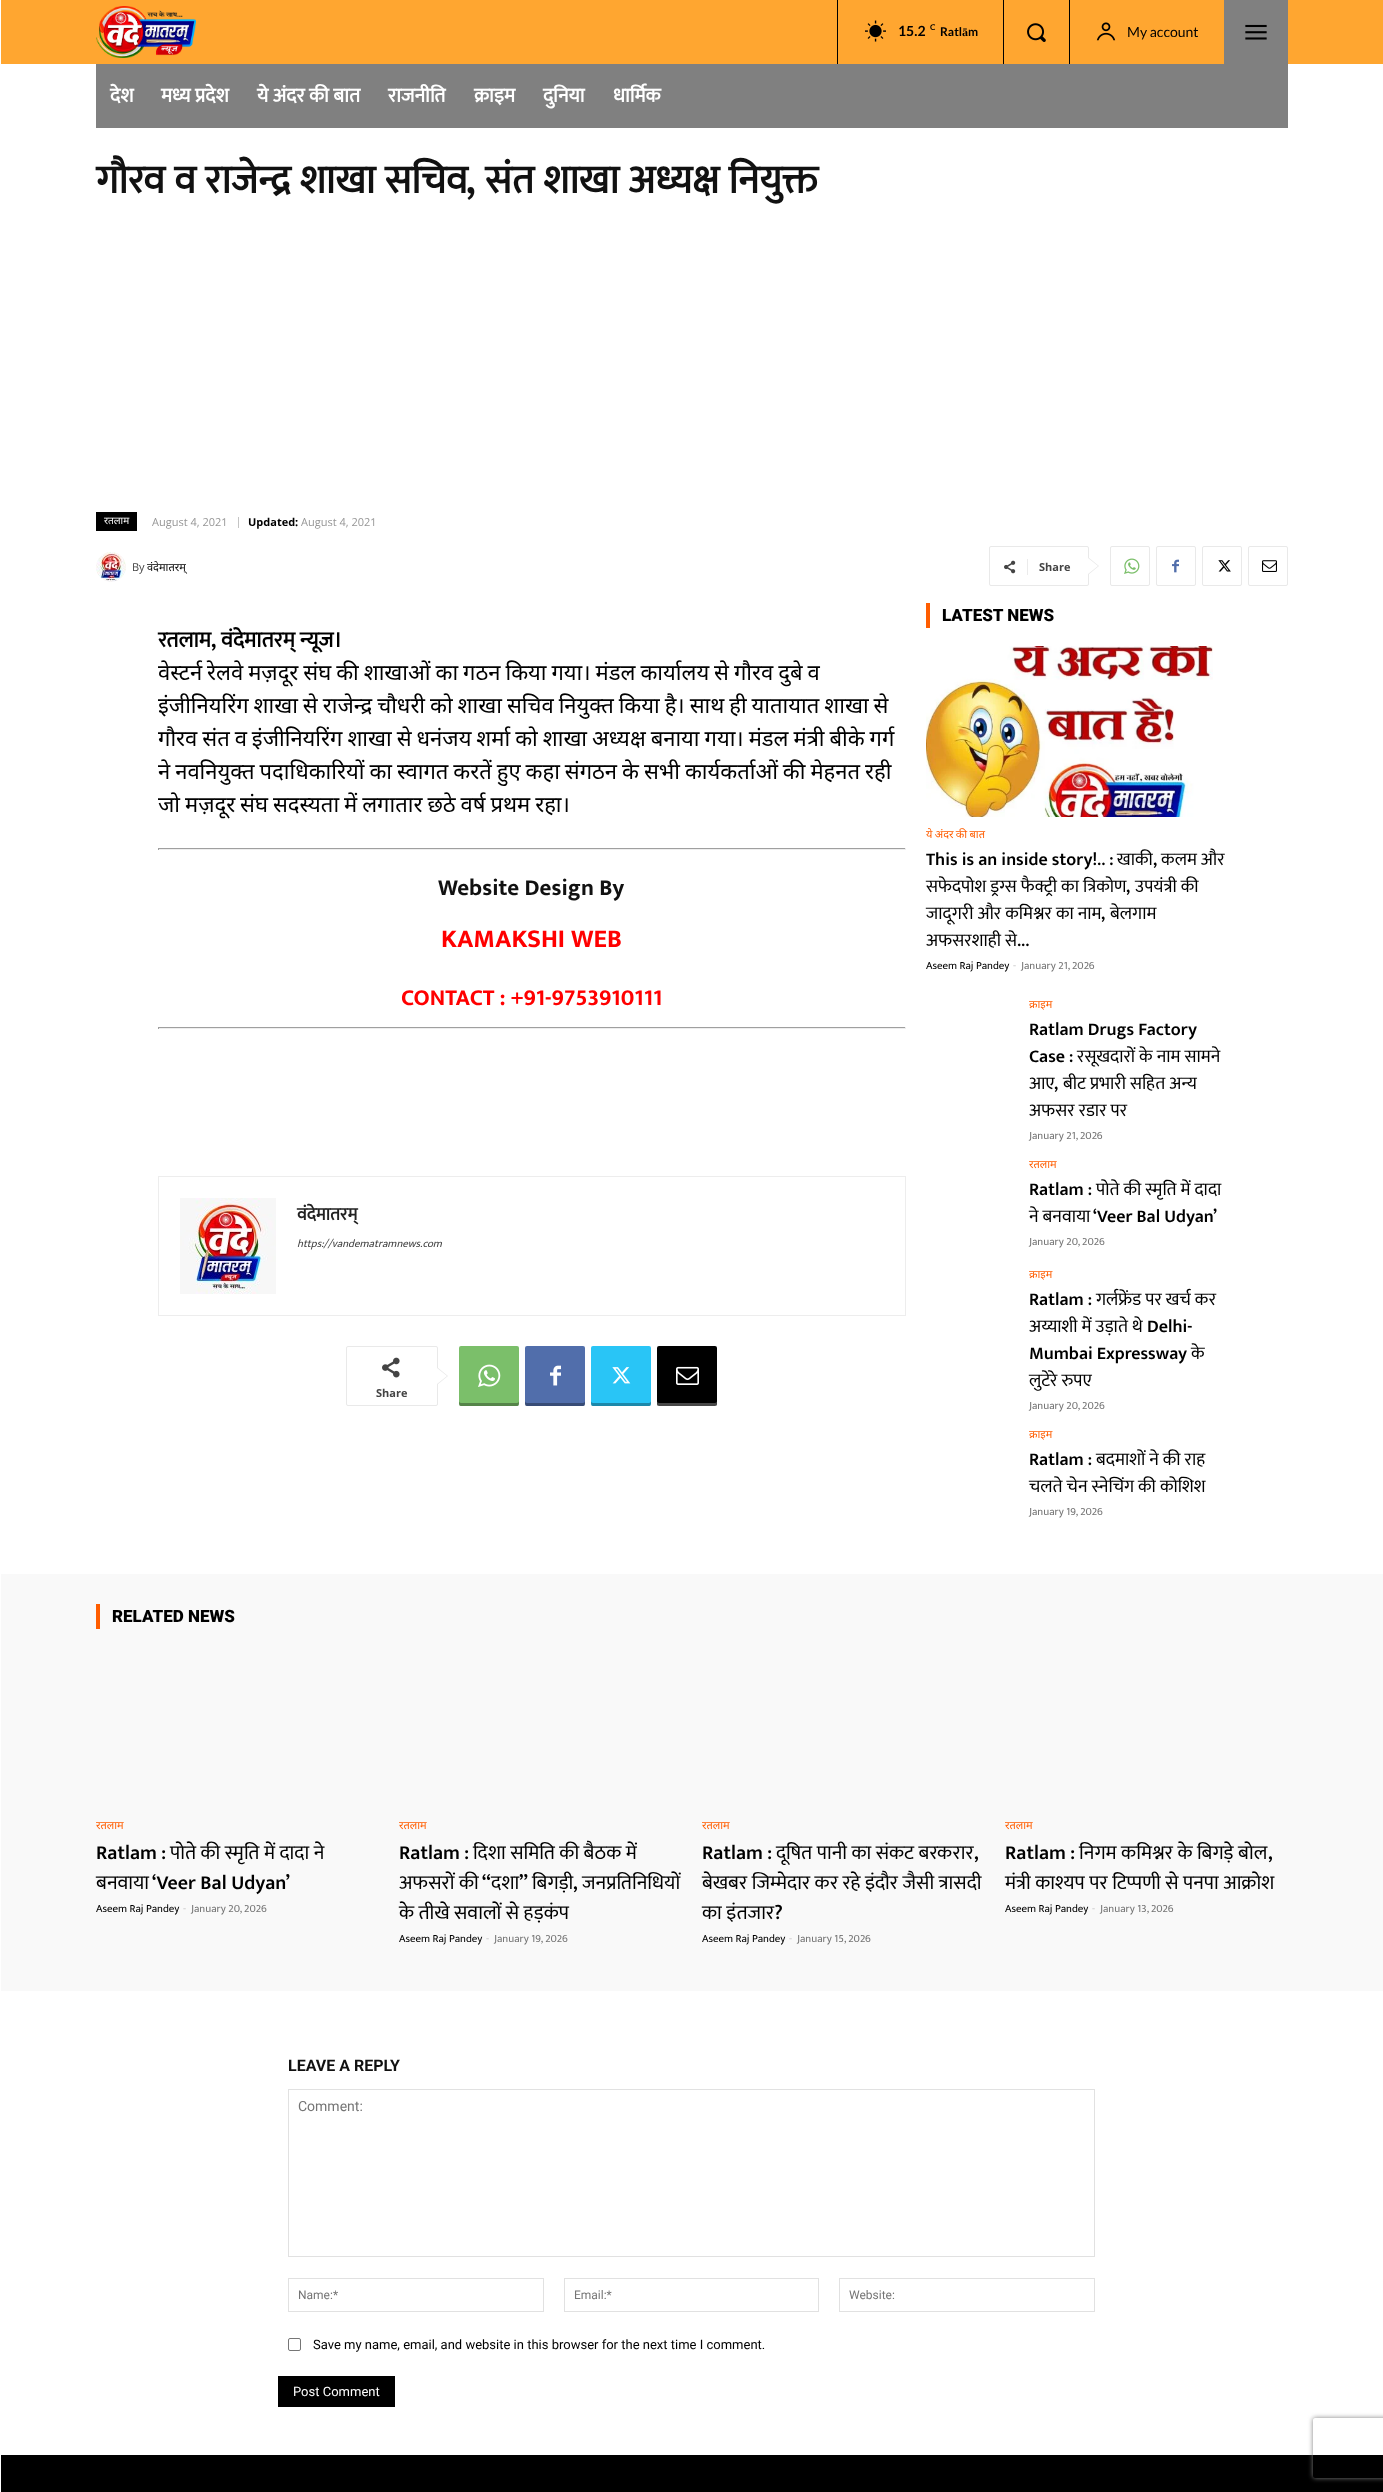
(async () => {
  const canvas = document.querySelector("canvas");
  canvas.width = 1383;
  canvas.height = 2492;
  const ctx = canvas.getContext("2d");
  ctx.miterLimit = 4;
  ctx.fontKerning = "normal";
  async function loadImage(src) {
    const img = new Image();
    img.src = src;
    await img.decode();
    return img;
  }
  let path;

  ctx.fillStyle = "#ffffff";
  ctx.fillRect(0, 0, 1383, 2492);
  ctx.fillStyle = "#ffa630";
  ctx.fillRect(1, 0, 1382, 64);
  ctx.drawImage(await loadImage("img/1.png"), 96, 6, 100, 52);
  ctx.fillStyle = "#000000";
  ctx.fillRect(837, 0, 1, 64);
  ctx.fillRect(1003, 0, 1, 64);
  ctx.drawImage(await loadImage("img/2.png"), 865, 20, 21, 22);
  ctx.fillRect(1069, 0, 1, 64);
  ctx.drawImage(await loadImage("img/3.png"), 1027, 23, 19, 19);
  ctx.drawImage(await loadImage("img/4.png"), 1096, 22, 20, 19);
  ctx.fillStyle = "#808080";
  ctx.fillRect(1224, 0, 64, 64);
  ctx.drawImage(await loadImage("img/5.png"), 1245, 24, 22, 16);
  for (const [x, y, w, h, color] of [
    [96, 64, 1192, 64, "#808080"],
    [96, 512, 41, 19, "#000000"],
    [238, 517, 1, 11, "#c4c4c4"],
  ]) {
    ctx.fillStyle = color;
    ctx.fillRect(x, y, w, h);
  }
  ctx.drawImage(await loadImage("img/6.png"), 96, 552, 30, 30);
  ctx.beginPath();
  ctx.roundRect(989.5, 546.5, 99, 39, 1.5);
  ctx.strokeStyle = "#e9e9e9";
  ctx.stroke();
  ctx.fillStyle = "#e9e9e9";
  path = new Path2D("M1088 575V557L1099 566Z");
  ctx.fill(path);
  ctx.drawImage(await loadImage("img/7.png"), 1004, 560, 12, 14);
  ctx.fillStyle = "#ebebeb";
  ctx.fillRect(1027, 559, 1, 16);
  ctx.fillStyle = "#ffffff";
  path = new Path2D("M1088 574V558L1098 566Z");
  ctx.fill(path);
  ctx.beginPath();
  ctx.roundRect(1110.5, 546.5, 39, 39, 1.5);
  ctx.stroke();
  ctx.drawImage(await loadImage("img/8.png"), 1124, 558, 16, 16);
  ctx.beginPath();
  ctx.roundRect(1156.5, 546.5, 39, 39, 1.5);
  ctx.stroke();
  ctx.drawImage(await loadImage("img/9.png"), 1172, 559, 7, 14);
  ctx.beginPath();
  ctx.roundRect(1202.5, 546.5, 39, 39, 1.5);
  ctx.stroke();
  ctx.drawImage(await loadImage("img/10.png"), 1218, 560, 13, 12);
  ctx.beginPath();
  ctx.roundRect(1248.5, 546.5, 39, 39, 1.5);
  ctx.stroke();
  ctx.drawImage(await loadImage("img/11.png"), 1262, 560, 15, 12);
  for (const [x, y, w, h, color] of [
    [158, 848, 748, 1, "#9f9f9f"],
    [905, 848, 1, 2, "#eeeeee"],
    [158, 849, 748, 1, "#eeeeee"],
    [158, 848, 1, 2, "#9f9f9f"],
    [158, 1027, 748, 1, "#9f9f9f"],
    [905, 1027, 1, 2, "#eeeeee"],
    [158, 1028, 748, 1, "#eeeeee"],
    [158, 1027, 1, 2, "#9f9f9f"],
  ]) {
    ctx.fillStyle = color;
    ctx.fillRect(x, y, w, h);
  }
  ctx.strokeStyle = "#ededed";
  ctx.strokeRect(158.5, 1176.5, 747, 139);
  ctx.drawImage(await loadImage("img/12.png"), 180, 1198, 96, 96);
  ctx.beginPath();
  ctx.roundRect(346.5, 1346.5, 91, 59, 1.5);
  ctx.strokeStyle = "#e9e9e9";
  ctx.stroke();
  ctx.drawImage(await loadImage("img/13.png"), 382, 1357, 18, 21);
  ctx.fillStyle = "#e9e9e9";
  path = new Path2D("M437 1385V1367L448 1376Z");
  ctx.fill(path);
  ctx.fillStyle = "#ffffff";
  path = new Path2D("M437 1384V1368L447 1376Z");
  ctx.fill(path);
  ctx.fillStyle = "#7bbf6a";
  ctx.beginPath();
  ctx.roundRect(459, 1346, 60, 60, 2);
  ctx.fill();
  ctx.save();
  ctx.beginPath();
  ctx.rect(459, 1346, 60, 60);
  ctx.clip();
  ctx.fillStyle = "rgba(0, 0, 0, 0.31)";
  path = new Path2D("M459 1401C459 1409 461 1406 470 1406H508C517 1406 519 1409 519 1401C519 1402 518 1403 517 1403H461C460 1403 459 1402 459 1401Z");
  ctx.fill(path);
  ctx.restore();
  ctx.drawImage(await loadImage("img/14.png"), 478, 1364, 23, 23);
  ctx.fillStyle = "#516eab";
  ctx.beginPath();
  ctx.roundRect(525, 1346, 60, 60, 2);
  ctx.fill();
  ctx.save();
  ctx.beginPath();
  ctx.rect(525, 1346, 60, 60);
  ctx.clip();
  ctx.fillStyle = "rgba(0, 0, 0, 0.31)";
  path = new Path2D("M525 1401C525 1409 527 1406 536 1406H574C583 1406 585 1409 585 1401C585 1402 584 1403 583 1403H527C526 1403 525 1402 525 1401Z");
  ctx.fill(path);
  ctx.restore();
  ctx.drawImage(await loadImage("img/15.png"), 550, 1365, 11, 21);
  ctx.fillStyle = "#29c5f6";
  ctx.beginPath();
  ctx.roundRect(591, 1346, 60, 60, 2);
  ctx.fill();
  ctx.save();
  ctx.beginPath();
  ctx.rect(591, 1346, 60, 60);
  ctx.clip();
  ctx.fillStyle = "rgba(0, 0, 0, 0.31)";
  path = new Path2D("M591 1401C591 1409 593 1406 602 1406H640C649 1406 651 1409 651 1401C651 1402 650 1403 649 1403H593C592 1403 591 1402 591 1401Z");
  ctx.fill(path);
  ctx.restore();
  ctx.drawImage(await loadImage("img/16.png"), 612, 1367, 19, 17);
  ctx.fillStyle = "#000000";
  ctx.beginPath();
  ctx.roundRect(657, 1346, 60, 60, 2);
  ctx.fill();
  ctx.save();
  ctx.beginPath();
  ctx.rect(657, 1346, 60, 60);
  ctx.clip();
  ctx.fillStyle = "rgba(255, 255, 255, 0.28)";
  path = new Path2D("M657 1401C657 1409 659 1406 668 1406H706C715 1406 717 1409 717 1401C717 1402 716 1403 715 1403H659C658 1403 657 1402 657 1401Z");
  ctx.fill(path);
  ctx.restore();
  ctx.drawImage(await loadImage("img/17.png"), 676, 1366, 23, 19);
  ctx.fillStyle = "#ff5d00";
  ctx.fillRect(926, 603, 4, 25);
  ctx.drawImage(await loadImage("img/18.png"), 926, 646, 287, 171);
  ctx.fillStyle = "#f9f9f9";
  ctx.fillRect(1, 1574, 1382, 417);
  ctx.fillStyle = "#ff5d00";
  ctx.fillRect(96, 1604, 4, 25);
  ctx.strokeStyle = "#e1e1e1";
  ctx.strokeRect(288.5, 2089.5, 806, 167);
  ctx.strokeRect(288.5, 2278.5, 255, 33);
  ctx.strokeRect(564.5, 2278.5, 254, 33);
  ctx.strokeRect(839.5, 2278.5, 255, 33);
  ctx.beginPath();
  ctx.roundRect(288.5, 2338.5, 12, 12, 1.5);
  ctx.strokeStyle = "#767676";
  ctx.stroke();
  ctx.fillStyle = "#000000";
  ctx.fillRect(278, 2376, 117, 31);
  ctx.fillRect(1, 2455, 1382, 37);
  ctx.save();
  path = new Path2D("M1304 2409H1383V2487H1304ZM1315 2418H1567C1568 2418 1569 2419 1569 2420V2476C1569 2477 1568 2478 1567 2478H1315C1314 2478 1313 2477 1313 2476V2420C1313 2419 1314 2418 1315 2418Z");
  ctx.clip(path, "evenodd");
  ctx.fillStyle = "#808080";
  ctx.filter = "blur(2.5px)";
  ctx.beginPath();
  ctx.roundRect(1313, 2418, 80, 60, 2);
  ctx.fill();
  ctx.filter = "none";
  ctx.restore();
  ctx.font = "bold 14px Lato";
  ctx.fillText("15.2", 898, 36);
  ctx.font = "bold 8px Lato";
  ctx.fillText("C", 930, 30);
  ctx.font = "bold 12px Lato";
  ctx.fillText("Ratl", 940, 36);
  ctx.font = "bold 12px Liberation Serif";
  ctx.fillText("ā", 962, 36);
  ctx.font = "bold 12px Lato";
  ctx.fillText("m", 968, 36);
  ctx.font = "14px Lato";
  ctx.fillText("My account", 1127, 37);
  ctx.font = "bold 20px Mukta";
  ctx.fillStyle = "#ffffff";
  for (const [text, x, y] of [
    ["देश", 110, 102],
    ["मध्य प्रदेश", 161, 102],
    ["ये अंदर की बात", 257, 102],
    ["राजनीति", 388, 102],
    ["क्राइम", 474, 102],
    ["दुनिया", 543, 102],
    ["धार्मिक", 613, 102],
  ]) {
    ctx.fillText(text, x, y);
  }
  ctx.wordSpacing = "0.5px";
  ctx.font = "bold 40px Mukta";
  ctx.fillStyle = "#111111";
  ctx.fillText("गौरव व राजेन्द्र शाखा सचिव", 96, 193);
  ctx.wordSpacing = "0px";
  ctx.font = "bold 40px 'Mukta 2'";
  ctx.fillText(",", 466, 193);
  ctx.wordSpacing = "0.5px";
  ctx.font = "bold 40px Mukta";
  ctx.fillText("संत शाखा अध्यक्ष नियुक्त", 485, 193);
  ctx.wordSpacing = "0px";
  ctx.font = "10px Noto Sans";
  ctx.fillStyle = "#ffffff";
  ctx.fillText("रतलाम", 104, 524);
  ctx.font = "11px Open Sans";
  ctx.fillStyle = "#969696";
  ctx.fillText("August 4, 2021", 152, 526);
  ctx.font = "bold 11px Open Sans";
  ctx.fillStyle = "#000000";
  ctx.fillText("Updated:", 248, 526);
  ctx.font = "11px Open Sans";
  ctx.fillStyle = "#969696";
  ctx.fillText("August 4, 2021", 301, 526);
  ctx.fillStyle = "#444444";
  ctx.fillText("By", 132, 571);
  ctx.font = "11px Noto Sans";
  ctx.fillStyle = "#000000";
  ctx.fillText("वंदेमातरम्", 147, 571);
  ctx.font = "bold 11px Open Sans";
  ctx.fillStyle = "#444444";
  ctx.fillText("Share", 1039, 571);
  ctx.font = "bold 22px Mukta";
  ctx.fillStyle = "#000000";
  ctx.fillText("रतलाम", 158, 647);
  ctx.font = "bold 22px 'Mukta 2'";
  ctx.fillText(",", 211, 647);
  ctx.font = "bold 22px Mukta";
  ctx.fillText("वंदेमातरम् न्यूज।", 221, 647);
  ctx.wordSpacing = "-0.75px";
  ctx.font = "22px Noto Sans";
  for (const [text, x, y] of [
    ["वेस्टर्न रेलवे मज़दूर संघ की शाखाओं का गठन किया गया। मंडल कार्यालय से गौरव दुबे व", 158, 680],
    ["इंजीनियरिंग शाखा से राजेन्द्र चौधरी को शाखा सचिव नियुक्त किया है। साथ ही यातायात शाखा से", 158, 713],
    ["गौरव संत व इंजीनियरिंग शाखा से धनंजय शर्मा को शाखा अध्यक्ष बनाया गया। मंडल मंत्री बीके गर्ग", 158, 746],
    ["ने नवनियुक्त पदाधिकारियों का स्वागत करतें हुए कहा संगठन के सभी कार्यकर्ताओं की मेहनत रही", 158, 779],
    ["जो मज़दूर संघ सदस्यता में लगातार छठे वर्ष प्रथम रहा।", 158, 812],
  ]) {
    ctx.fillText(text, x, y);
  }
  ctx.wordSpacing = "0px";
  ctx.font = "bold 23px 'Mukta 2'";
  ctx.fillStyle = "#111111";
  ctx.fillText("Website Design By", 438, 895);
  ctx.font = "bold 26px 'Mukta 2'";
  ctx.fillStyle = "#ff0000";
  ctx.fillText("KAMAKSHI WEB", 441, 947);
  ctx.font = "bold 23px 'Mukta 2'";
  ctx.fillText("CONTACT : +91-9753910111", 401, 1005);
  ctx.font = "bold 18px Mukta";
  ctx.fillStyle = "#222222";
  ctx.fillText("वंदेमातरम्", 297, 1220);
  ctx.font = "italic 11px Mukta";
  ctx.fillStyle = "#444444";
  ctx.fillText("https://vandematramnews.com", 297, 1247);
  ctx.font = "bold 11px Open Sans";
  ctx.fillText("Share", 376, 1397);
  ctx.font = "900 17px Roboto";
  ctx.fillStyle = "#000000";
  ctx.fillText("LATEST NEWS", 942, 621);
  ctx.wordSpacing = "-0.5px";
  ctx.font = "11px Noto Sans";
  ctx.fillStyle = "#ff5d00";
  ctx.fillText("ये अंदर की बात", 926, 838);
  ctx.wordSpacing = "0px";
  ctx.font = "600 18px Mukta";
  ctx.fillStyle = "#000000";
  ctx.fillText("This is an inside story!.. :", 926, 865);
  ctx.font = "18px Mukta";
  ctx.fillText("खाकी", 1117, 865);
  ctx.font = "600 18px Mukta";
  ctx.fillText(",", 1153, 865);
  ctx.font = "18px Mukta";
  ctx.fillText("कलम और", 1161, 865);
  ctx.fillText("सफेदपोश ड्रग्स फैक्ट्री का त्रिकोण", 926, 892);
  ctx.font = "600 18px Mukta";
  ctx.fillText(",", 1126, 892);
  ctx.font = "18px Mukta";
  ctx.fillText("उपयंत्री की", 1135, 892);
  ctx.fillText("जादूगरी और कमिश्नर का नाम", 926, 919);
  ctx.font = "600 18px Mukta";
  ctx.fillText(",", 1101, 919);
  ctx.font = "18px Mukta";
  ctx.fillText("बेलगाम", 1110, 919);
  ctx.fillText("अफसरशाही से", 926, 946);
  ctx.font = "600 18px Mukta";
  ctx.fillText("...", 1017, 946);
  ctx.font = "11px 'Mukta 2'";
  ctx.fillText("Aseem Raj Pandey", 926, 969);
  ctx.fillStyle = "#cccccc";
  ctx.fillText("-", 1013, 969);
  ctx.fillStyle = "#757575";
  ctx.fillText("January 21, 2026", 1021, 969);
  ctx.font = "11px Noto Sans";
  ctx.fillStyle = "#ff5d00";
  ctx.fillText("क्राइम", 1029, 1008);
  ctx.font = "600 18px Mukta";
  ctx.fillStyle = "#000000";
  ctx.fillText("Ratlam Drugs Factory", 1029, 1035);
  ctx.fillText("Case :", 1029, 1062);
  ctx.font = "18px Mukta";
  ctx.fillText("रसूखदारों के नाम सामने", 1077, 1062);
  ctx.fillText("आए", 1029, 1089);
  ctx.font = "600 18px Mukta";
  ctx.fillText(",", 1054, 1089);
  ctx.font = "18px Mukta";
  ctx.fillText("बीट प्रभारी सहित अन्य", 1063, 1089);
  ctx.fillText("अफसर रडार पर", 1029, 1116);
  ctx.font = "11px 'Mukta 2'";
  ctx.fillStyle = "#757575";
  ctx.fillText("January 21, 2026", 1029, 1139);
  ctx.font = "11px Noto Sans";
  ctx.fillStyle = "#ff5d00";
  ctx.fillText("रतलाम", 1029, 1168);
  ctx.font = "600 18px Mukta";
  ctx.fillStyle = "#000000";
  ctx.fillText("Ratlam :", 1029, 1195);
  ctx.font = "18px Mukta";
  ctx.fillText("पोते की स्मृति में दादा", 1096, 1195);
  ctx.fillText("ने बनवाया", 1029, 1222);
  ctx.font = "600 18px Mukta";
  ctx.fillText("‘Veer Bal Udyan’", 1093, 1222);
  ctx.font = "11px 'Mukta 2'";
  ctx.fillStyle = "#757575";
  ctx.fillText("January 20, 2026", 1029, 1245);
  ctx.font = "11px Noto Sans";
  ctx.fillStyle = "#ff5d00";
  ctx.fillText("क्राइम", 1029, 1278);
  ctx.font = "600 18px Mukta";
  ctx.fillStyle = "#000000";
  ctx.fillText("Ratlam :", 1029, 1305);
  ctx.font = "18px Mukta";
  ctx.fillText("गर्लफ्रेंड पर खर्च कर", 1096, 1305);
  ctx.fillText("अय्याशी में उड़ाते थे", 1029, 1332);
  ctx.font = "600 18px Mukta";
  ctx.fillText("Delhi-", 1147, 1332);
  ctx.fillText("Mumbai Expressway", 1029, 1359);
  ctx.font = "18px Mukta";
  ctx.fillText("के", 1191, 1359);
  ctx.fillText("लुटेरे रुपए", 1029, 1386);
  ctx.font = "11px 'Mukta 2'";
  ctx.fillStyle = "#757575";
  ctx.fillText("January 20, 2026", 1029, 1409);
  ctx.font = "11px Noto Sans";
  ctx.fillStyle = "#ff5d00";
  ctx.fillText("क्राइम", 1029, 1438);
  ctx.font = "600 18px Mukta";
  ctx.fillStyle = "#000000";
  ctx.fillText("Ratlam :", 1029, 1465);
  ctx.font = "18px Mukta";
  ctx.fillText("बदमाशों ने की राह", 1096, 1465);
  ctx.fillText("चलते चेन स्नेचिंग की कोशिश", 1029, 1492);
  ctx.font = "11px 'Mukta 2'";
  ctx.fillStyle = "#757575";
  ctx.fillText("January 19, 2026", 1029, 1515);
  ctx.font = "900 17px Roboto";
  ctx.fillStyle = "#000000";
  ctx.fillText("RELATED NEWS", 112, 1622);
  ctx.font = "11px Noto Sans";
  ctx.fillStyle = "#ff5d00";
  ctx.fillText("रतलाम", 96, 1829);
  ctx.font = "600 20px Mukta";
  ctx.fillStyle = "#000000";
  ctx.fillText("Ratlam :", 96, 1859);
  ctx.font = "20px Mukta";
  ctx.fillText("पोते की स्मृति में दादा ने", 170, 1859);
  ctx.fillText("बनवाया", 96, 1889);
  ctx.font = "600 20px Mukta";
  ctx.fillText("‘Veer Bal Udyan’", 152, 1889);
  ctx.font = "11px 'Mukta 2'";
  ctx.fillText("Aseem Raj Pandey", 96, 1912);
  ctx.fillStyle = "#cccccc";
  ctx.fillText("-", 183, 1912);
  ctx.fillStyle = "#757575";
  ctx.fillText("January 20, 2026", 191, 1912);
  ctx.font = "11px Noto Sans";
  ctx.fillStyle = "#ff5d00";
  ctx.fillText("रतलाम", 399, 1829);
  ctx.font = "600 20px Mukta";
  ctx.fillStyle = "#000000";
  ctx.fillText("Ratlam :", 399, 1859);
  ctx.font = "20px Mukta";
  ctx.fillText("दिशा समिति की बैठक में", 473, 1859);
  ctx.fillText("अफसरों की", 399, 1889);
  ctx.font = "600 20px Mukta";
  ctx.fillText("“", 482, 1889);
  ctx.font = "20px Mukta";
  ctx.fillText("दशा", 491, 1889);
  ctx.font = "600 20px Mukta";
  ctx.fillText("”", 519, 1889);
  ctx.font = "20px Mukta";
  ctx.fillText("बिगड़ी", 532, 1889);
  ctx.font = "600 20px Mukta";
  ctx.fillText(",", 573, 1889);
  ctx.font = "20px Mukta";
  ctx.fillText("जनप्रतिनिधियों", 582, 1889);
  ctx.fillText("के तीखे सवालों से हड़कंप", 399, 1919);
  ctx.font = "11px 'Mukta 2'";
  ctx.fillText("Aseem Raj Pandey", 399, 1942);
  ctx.fillStyle = "#cccccc";
  ctx.fillText("-", 486, 1942);
  ctx.fillStyle = "#757575";
  ctx.fillText("January 19, 2026", 494, 1942);
  ctx.font = "11px Noto Sans";
  ctx.fillStyle = "#ff5d00";
  ctx.fillText("रतलाम", 702, 1829);
  ctx.font = "600 20px Mukta";
  ctx.fillStyle = "#000000";
  ctx.fillText("Ratlam :", 702, 1859);
  ctx.font = "20px Mukta";
  ctx.fillText("दूषित पानी का संकट बरकरार", 776, 1859);
  ctx.font = "600 20px Mukta";
  ctx.fillText(",", 974, 1859);
  ctx.font = "20px Mukta";
  ctx.fillText("बेखबर जिम्मेदार कर रहे इंदौर जैसी त्रासदी", 702, 1889);
  ctx.fillText("का इंतजार", 702, 1919);
  ctx.font = "600 20px Mukta";
  ctx.fillText("?", 774, 1919);
  ctx.font = "11px 'Mukta 2'";
  ctx.fillText("Aseem Raj Pandey", 702, 1942);
  ctx.fillStyle = "#cccccc";
  ctx.fillText("-", 789, 1942);
  ctx.fillStyle = "#757575";
  ctx.fillText("January 15, 2026", 797, 1942);
  ctx.font = "11px Noto Sans";
  ctx.fillStyle = "#ff5d00";
  ctx.fillText("रतलाम", 1005, 1829);
  ctx.font = "600 20px Mukta";
  ctx.fillStyle = "#000000";
  ctx.fillText("Ratlam :", 1005, 1859);
  ctx.font = "20px Mukta";
  ctx.fillText("निगम कमिश्नर के बिगड़े बोल", 1079, 1859);
  ctx.font = "600 20px Mukta";
  ctx.fillText(",", 1268, 1859);
  ctx.font = "20px Mukta";
  ctx.fillText("मंत्री काश्यप पर टिप्पणी से पनपा आक्रोश", 1005, 1889);
  ctx.font = "11px 'Mukta 2'";
  ctx.fillText("Aseem Raj Pandey", 1005, 1912);
  ctx.fillStyle = "#cccccc";
  ctx.fillText("-", 1092, 1912);
  ctx.fillStyle = "#757575";
  ctx.fillText("January 13, 2026", 1100, 1912);
  ctx.font = "bold 16px Roboto";
  ctx.fillStyle = "#111111";
  ctx.fillText("LEAVE A REPLY", 288, 2071);
  ctx.font = "14px Roboto";
  ctx.fillStyle = "#757575";
  ctx.fillText("Comment:", 298, 2111);
  ctx.font = "12px Roboto";
  for (const [text, x, y] of [
    ["Name:*", 298, 2299],
    ["Email:*", 574, 2299],
    ["Website:", 849, 2299],
  ]) {
    ctx.fillText(text, x, y);
  }
  ctx.font = "13px Roboto";
  ctx.fillStyle = "#000000";
  ctx.fillText("Save my name, email, and website in this browser for the next time I comment.", 313, 2349);
  ctx.fillStyle = "#ffffff";
  ctx.fillText("Post Comment", 293, 2396);
})();
